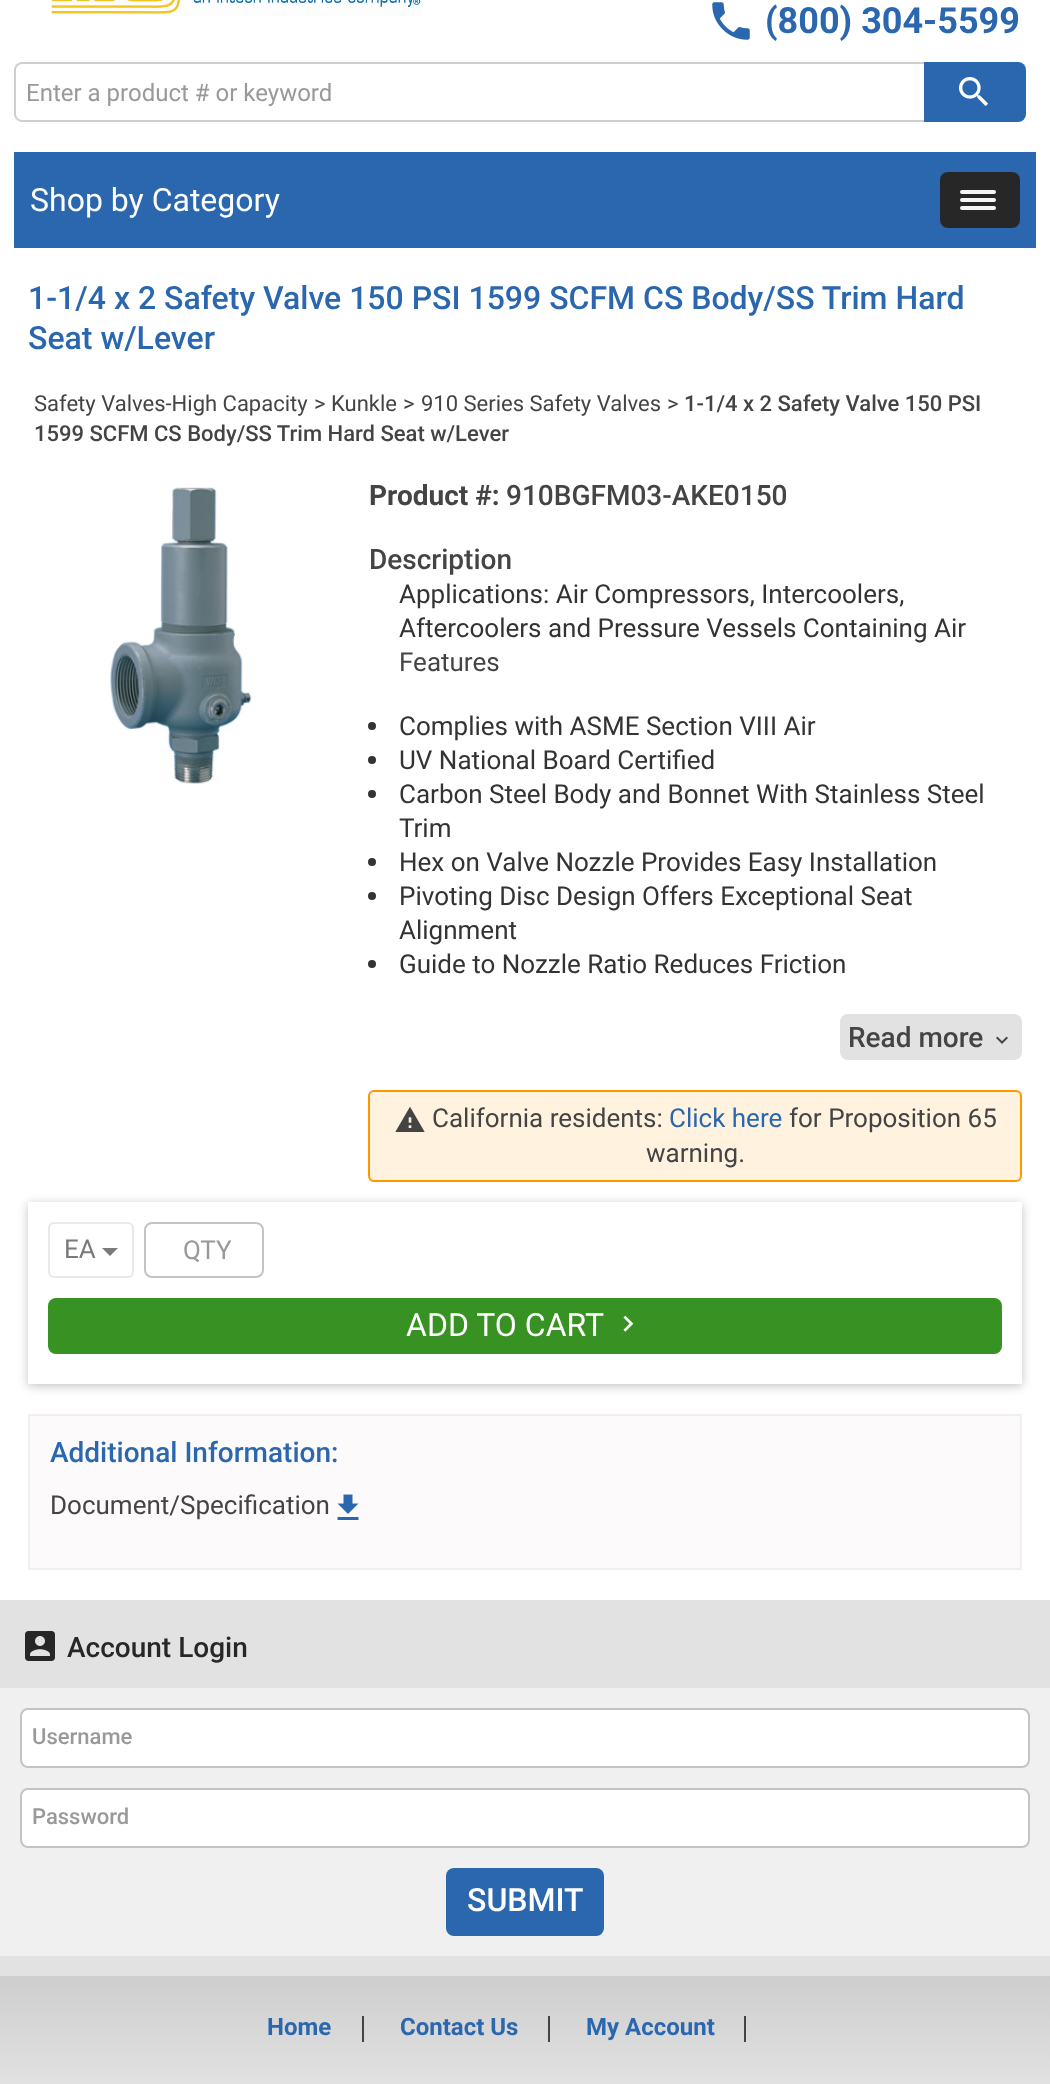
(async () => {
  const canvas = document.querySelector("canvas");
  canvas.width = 1050;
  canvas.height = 2084;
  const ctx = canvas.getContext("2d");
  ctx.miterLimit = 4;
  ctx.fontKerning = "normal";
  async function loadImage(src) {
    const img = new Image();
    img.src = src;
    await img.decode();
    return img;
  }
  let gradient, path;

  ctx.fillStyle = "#ffffff";
  ctx.fillRect(0, 0, 1050, 2084);
  ctx.drawImage(await loadImage("img/1.png"), 51, 0, 372, 16);
  ctx.drawImage(await loadImage("img/2.png"), 712, 2, 38, 38);
  ctx.fillStyle = "#cecece";
  path = new Path2D("M22 62H924V122H22C18 122 14 118 14 114V70C14 66 18 62 22 62ZM22 64H924V120H22C19 120 16 117 16 114V70C16 67 19 64 22 64Z");
  ctx.fill(path, "evenodd");
  ctx.fillStyle = "#2a67af";
  ctx.beginPath();
  ctx.roundRect(924, 62, 102, 60, [0, 8, 8, 0]);
  ctx.fill();
  ctx.drawImage(await loadImage("img/3.png"), 959, 77, 29, 29);
  ctx.fillRect(14, 152, 1022, 96);
  ctx.fillStyle = "#272727";
  ctx.beginPath();
  ctx.roundRect(940, 172, 80, 56, 8);
  ctx.fill();
  ctx.fillStyle = "#f5f5f5";
  ctx.beginPath();
  ctx.roundRect(960, 190, 36, 4, 2);
  ctx.fill();
  ctx.beginPath();
  ctx.roundRect(960, 198, 36, 4, 2);
  ctx.fill();
  ctx.beginPath();
  ctx.roundRect(960, 206, 36, 4, 2);
  ctx.fill();
  ctx.drawImage(await loadImage("img/4.png"), 110, 487, 142, 297);
  ctx.fillStyle = "#333333";
  ctx.beginPath();
  ctx.arc(372, 726, 4, 0, Math.PI * 2);
  ctx.fill();
  ctx.beginPath();
  ctx.arc(372, 760, 4, 0, Math.PI * 2);
  ctx.fill();
  ctx.beginPath();
  ctx.arc(372, 794, 4, 0, Math.PI * 2);
  ctx.fill();
  ctx.beginPath();
  ctx.arc(372, 862, 4, 0, Math.PI * 2);
  ctx.fill();
  ctx.beginPath();
  ctx.arc(372, 896, 4, 0, Math.PI * 2);
  ctx.fill();
  ctx.beginPath();
  ctx.arc(372, 964, 4, 0, Math.PI * 2);
  ctx.fill();
  ctx.fillStyle = "#e2e2e2";
  ctx.beginPath();
  ctx.roundRect(840, 1014, 182, 46, 8);
  ctx.fill();
  ctx.drawImage(await loadImage("img/5.png"), 996, 1036, 12, 8);
  ctx.fillStyle = "#fff3e0";
  ctx.beginPath();
  ctx.roundRect(369, 1091, 652, 90, 5);
  ctx.fill();
  ctx.strokeStyle = "#ff9800";
  ctx.lineWidth = 2;
  ctx.stroke();
  ctx.drawImage(await loadImage("img/6.png"), 395, 1106, 30, 26);
  ctx.save();
  path = new Path2D("M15 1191H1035V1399H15ZM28 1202H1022V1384H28Z");
  ctx.clip(path, "evenodd");
  ctx.fillStyle = "rgba(0, 0, 0, 0.12)";
  ctx.filter = "blur(4px)";
  ctx.beginPath();
  ctx.rect(28, 1204, 994, 182);
  ctx.fill();
  ctx.filter = "none";
  ctx.restore();
  ctx.save();
  path = new Path2D("M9 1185H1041V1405H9ZM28 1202H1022V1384H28Z");
  ctx.clip(path, "evenodd");
  ctx.fillStyle = "rgba(0, 0, 0, 0.12)";
  ctx.filter = "blur(6px)";
  ctx.beginPath();
  ctx.rect(28, 1204, 994, 182);
  ctx.fill();
  ctx.filter = "none";
  ctx.restore();
  ctx.beginPath();
  ctx.roundRect(49, 1223, 84, 54, 5);
  ctx.strokeStyle = "#e9e9e9";
  ctx.stroke();
  ctx.fillStyle = "#7a7a7a";
  path = new Path2D("M102 1248H118L110 1256Z");
  ctx.fill(path);
  ctx.beginPath();
  ctx.roundRect(145, 1223, 118, 54, 7);
  ctx.strokeStyle = "#c4c4c4";
  ctx.stroke();
  ctx.fillStyle = "#389123";
  ctx.beginPath();
  ctx.roundRect(48, 1298, 954, 56, 8);
  ctx.fill();
  ctx.drawImage(await loadImage("img/7.png"), 623, 1315, 11, 17);
  ctx.fillStyle = "#fcfafa";
  ctx.beginPath();
  ctx.rect(29, 1415, 992, 154);
  ctx.fill();
  ctx.strokeStyle = "#f0f0f0";
  ctx.stroke();
  ctx.drawImage(await loadImage("img/8.png"), 337, 1494, 22, 26);
  ctx.fillStyle = "#f0f0f0";
  ctx.fillRect(0, 1688, 1050, 268);
  ctx.fillStyle = "#e2e2e2";
  ctx.fillRect(0, 1600, 1050, 88);
  ctx.drawImage(await loadImage("img/9.png"), 25, 1631, 30, 30);
  ctx.fillStyle = "#ffffff";
  ctx.beginPath();
  ctx.roundRect(21, 1709, 1008, 58, 7);
  ctx.fill();
  ctx.strokeStyle = "#c4c4c4";
  ctx.stroke();
  ctx.beginPath();
  ctx.roundRect(21, 1789, 1008, 58, 7);
  ctx.fill();
  ctx.stroke();
  ctx.fillStyle = "#2a67af";
  ctx.beginPath();
  ctx.roundRect(446, 1868, 158, 68, 8);
  ctx.fill();
  gradient = ctx.createLinearGradient(525, 1976, 525, 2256);
  gradient.addColorStop(0, "#cecece");
  gradient.addColorStop(1, "#ffffff");
  ctx.fillStyle = gradient;
  ctx.fillRect(0, 1976, 1050, 108);
  for (const [x, y, w, h, color] of [
    [0, 1956, 1050, 20, "#e2e2e2"],
    [362, 2016, 2, 26, "#444444"],
    [548, 2016, 2, 26, "#444444"],
    [744, 2016, 2, 26, "#444444"],
  ]) {
    ctx.fillStyle = color;
    ctx.fillRect(x, y, w, h);
  }
  ctx.font = "bold 36px Roboto";
  ctx.fillStyle = "#2a67af";
  ctx.fillText("(800) 304-5599", 765, 33);
  ctx.font = "24px Roboto";
  ctx.fillStyle = "#999999";
  ctx.fillText("Enter a product # or keyword", 26, 101);
  ctx.font = "32px Roboto";
  ctx.fillStyle = "#ffffff";
  ctx.fillText("Shop by Category", 30, 211);
  ctx.font = "500 32px Roboto";
  ctx.fillStyle = "#2a67af";
  ctx.fillText("1-1/4 x 2 Safety Valve 150 PSI 1599 SCFM CS Body/SS Trim Hard", 28, 309);
  ctx.fillText("Seat w/Lever", 28, 349);
  ctx.font = "22px Roboto";
  ctx.fillStyle = "#444444";
  for (const [text, x, y] of [
    ["Safety Valves-High Capacity", 34, 411],
    [">", 314, 411],
    ["Kunkle", 331, 411],
    [">", 403, 411],
    ["910 Series Safety Valves", 421, 411],
    [">", 667, 411],
  ]) {
    ctx.fillText(text, x, y);
  }
  ctx.font = "500 22px Roboto";
  ctx.fillText("1-1/4 x 2 Safety Valve 150 PSI", 684, 411);
  ctx.fillText("1599 SCFM CS Body/SS Trim Hard Seat w/Lever", 34, 441);
  ctx.font = "bold 28px Roboto";
  ctx.fillText("Product #:", 369, 505);
  ctx.font = "500 28px Roboto";
  ctx.fillText("910BGFM03-AKE0150", 506, 505);
  ctx.fillText("Description", 369, 569);
  ctx.font = "26px Roboto";
  ctx.fillStyle = "#333333";
  ctx.fillText("Applications: Air Compressors, Intercoolers,", 399, 603);
  ctx.fillText("Aftercoolers and Pressure Vessels Containing Air", 399, 637);
  ctx.fillStyle = "#444444";
  ctx.fillText("Features", 399, 671);
  ctx.fillStyle = "#333333";
  for (const [text, x, y] of [
    ["Complies with ASME Section VIII Air", 399, 735],
    ["UV National Board Certified", 399, 769],
    ["Carbon Steel Body and Bonnet With Stainless Steel", 399, 803],
    ["Trim", 399, 837],
    ["Hex on Valve Nozzle Provides Easy Installation", 399, 871],
    ["Pivoting Disc Design Offers Exceptional Seat", 399, 905],
    ["Alignment", 399, 939],
    ["Guide to Nozzle Ratio Reduces Friction", 399, 973],
  ]) {
    ctx.fillText(text, x, y);
  }
  ctx.font = "500 28px Roboto";
  ctx.fillStyle = "#444444";
  ctx.fillText("Read more", 848, 1047);
  ctx.font = "26px Roboto";
  ctx.fillText("California residents:", 432, 1127);
  ctx.fillStyle = "#2a67af";
  ctx.fillText("Click here", 669, 1127);
  ctx.fillStyle = "#444444";
  ctx.fillText("for Proposition 65", 789, 1127);
  ctx.fillText("warning.", 646, 1162);
  ctx.fillStyle = "#7a7a7a";
  ctx.fillText("EA", 64, 1258);
  ctx.fillStyle = "#999999";
  ctx.fillText("QTY", 183, 1259);
  ctx.font = "32px Roboto";
  ctx.fillStyle = "#ffffff";
  ctx.fillText("ADD TO CART", 406, 1336);
  ctx.font = "500 28px Roboto";
  ctx.fillStyle = "#2a67af";
  ctx.fillText("Additional Information:", 50, 1462);
  ctx.font = "26px Roboto";
  ctx.fillStyle = "#444444";
  ctx.fillText("Document/Specification", 50, 1514);
  ctx.font = "500 28px Roboto";
  ctx.fillStyle = "#272727";
  ctx.fillText("Account Login", 67, 1657);
  ctx.font = "500 22px Roboto";
  ctx.fillStyle = "#999999";
  ctx.fillText("Username", 32, 1744);
  ctx.fillText("Password", 32, 1824);
  ctx.font = "500 32px Roboto";
  ctx.fillStyle = "#ffffff";
  ctx.fillText("SUBMIT", 467, 1911);
  ctx.font = "bold 24px Roboto";
  ctx.fillStyle = "#2a67af";
  for (const [text, x, y] of [
    ["Home", 267, 2035],
    ["Contact Us", 400, 2035],
    ["My Account", 586, 2035],
  ]) {
    ctx.fillText(text, x, y);
  }
})();
